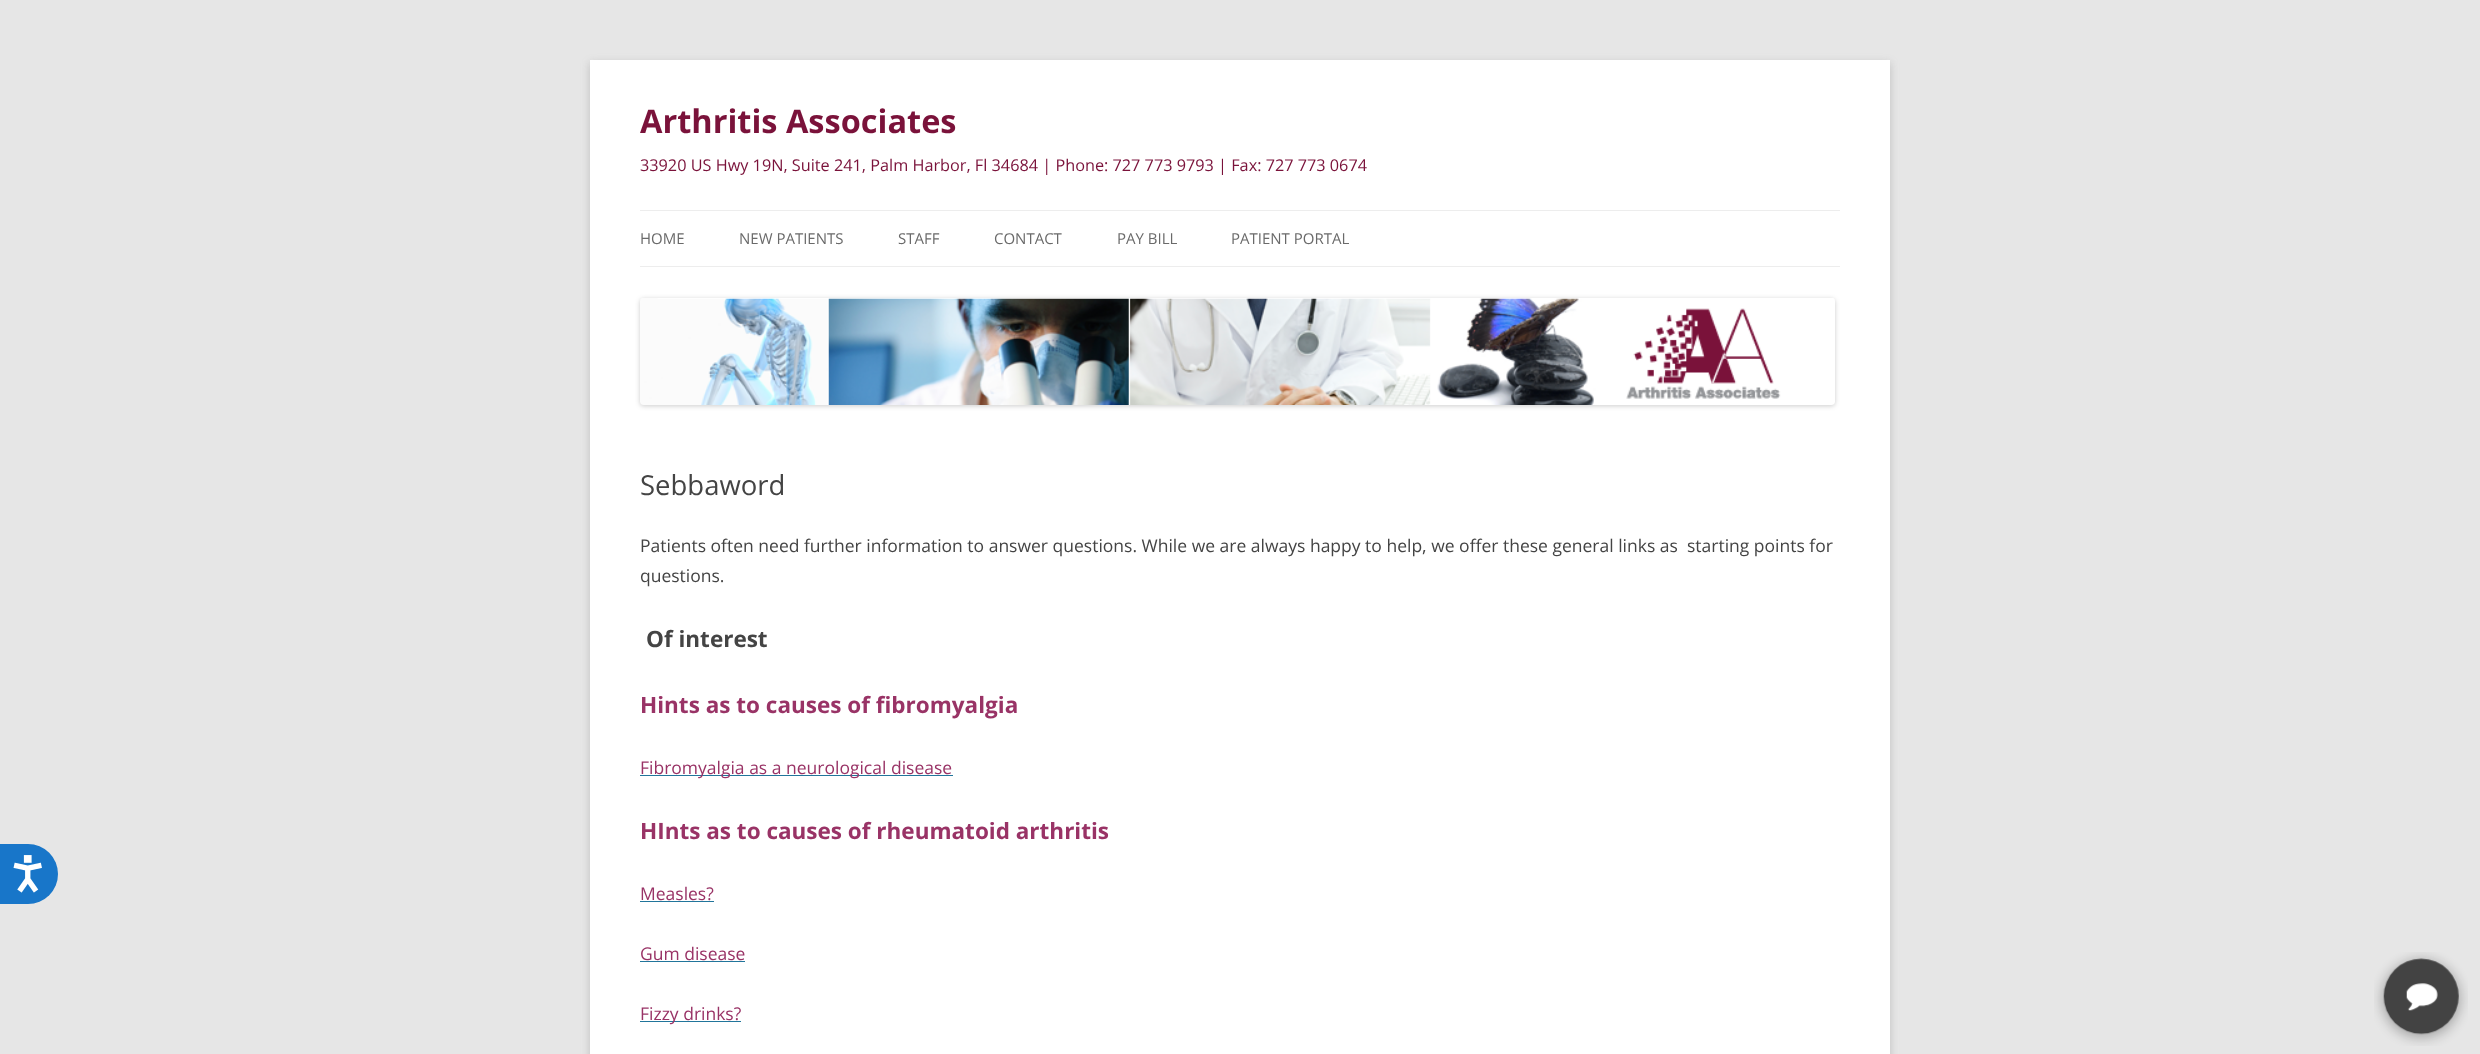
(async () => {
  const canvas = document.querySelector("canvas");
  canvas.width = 2480;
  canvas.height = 1054;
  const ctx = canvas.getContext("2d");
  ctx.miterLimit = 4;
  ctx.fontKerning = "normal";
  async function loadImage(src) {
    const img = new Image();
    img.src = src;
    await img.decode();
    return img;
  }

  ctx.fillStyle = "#e6e6e6";
  ctx.fillRect(0, 0, 2480, 1054);
  ctx.fillStyle = "#1876c9";
  ctx.beginPath();
  ctx.roundRect(0, 844, 58, 60, [0, 30, 30, 0]);
  ctx.fill();
  ctx.drawImage(await loadImage("img/1.png"), 13, 855, 29, 38);
  ctx.fillStyle = "rgba(100, 100, 100, 0.3)";
  ctx.filter = "blur(4px)";
  ctx.beginPath();
  ctx.rect(590, 63, 1300, 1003);
  ctx.fill();
  ctx.filter = "none";
  for (const [x, y, w, h, color] of [
    [590, 60, 1300, 994, "#ffffff"],
    [640, 210, 1200, 1, "#ededed"],
    [640, 266, 1200, 1, "#ededed"],
  ]) {
    ctx.fillStyle = color;
    ctx.fillRect(x, y, w, h);
  }
  ctx.fillStyle = "rgba(0, 0, 0, 0.2)";
  ctx.filter = "blur(2.5px)";
  ctx.beginPath();
  ctx.roundRect(640, 299, 1195, 107, 4);
  ctx.fill();
  ctx.filter = "none";
  ctx.drawImage(await loadImage("img/2.png"), 640, 298, 1195, 107);
  for (const [x, y, w, h, color] of [
    [640, 775, 313, 1, "#21759b"],
    [640, 901, 74, 1, "#21759b"],
    [640, 961, 105, 1, "#21759b"],
    [640, 1021, 101, 1, "#21759b"],
  ]) {
    ctx.fillStyle = color;
    ctx.fillRect(x, y, w, h);
  }
  ctx.drawImage(await loadImage("img/3.png"), 2374, 952, 94, 94);
  ctx.font = "bold 32.5px Open Sans";
  ctx.fillStyle = "#7a123a";
  ctx.fillText("Arthritis Associates", 640, 133);
  ctx.font = "16.25px Open Sans";
  ctx.fillText("33920 US Hwy 19N, Suite 241, Palm Harbor, Fl 34684 | Phone: 727 773 9793 | Fax: 727 773 0674", 640, 171);
  ctx.font = "15px Open Sans";
  ctx.fillStyle = "#6a6a6a";
  for (const [text, x, y] of [
    ["HOME", 640, 244],
    ["NEW PATIENTS", 739, 244],
    ["STAFF", 898, 244],
    ["CONTACT", 994, 244],
    ["PAY BILL", 1117, 244],
    ["PATIENT PORTAL", 1231, 244],
  ]) {
    ctx.fillText(text, x, y);
  }
  ctx.font = "27.5px Open Sans";
  ctx.fillStyle = "#444444";
  ctx.fillText("Sebbaword", 640, 495);
  ctx.font = "17.5px Open Sans";
  ctx.fillText("Patients often need further information to answer questions. While we are always happy to help, we offer these general links as  starting points for", 640, 552);
  ctx.fillText("questions.", 640, 582);
  ctx.font = "bold 22.5px Open Sans";
  ctx.fillText("Of interest", 646, 647);
  ctx.fillStyle = "#993366";
  ctx.fillText("Hints as to causes of fibromyalgia", 640, 713);
  ctx.font = "17.5px Open Sans";
  ctx.fillText("Fibromyalgia as a neurological disease", 640, 774);
  ctx.font = "bold 22.5px Open Sans";
  ctx.fillText("HInts as to causes of rheumatoid arthritis", 640, 839);
  ctx.font = "17.5px Open Sans";
  for (const [text, x, y] of [
    ["Measles?", 640, 900],
    ["Gum disease", 640, 960],
    ["Fizzy drinks?", 640, 1020],
  ]) {
    ctx.fillText(text, x, y);
  }
})();
